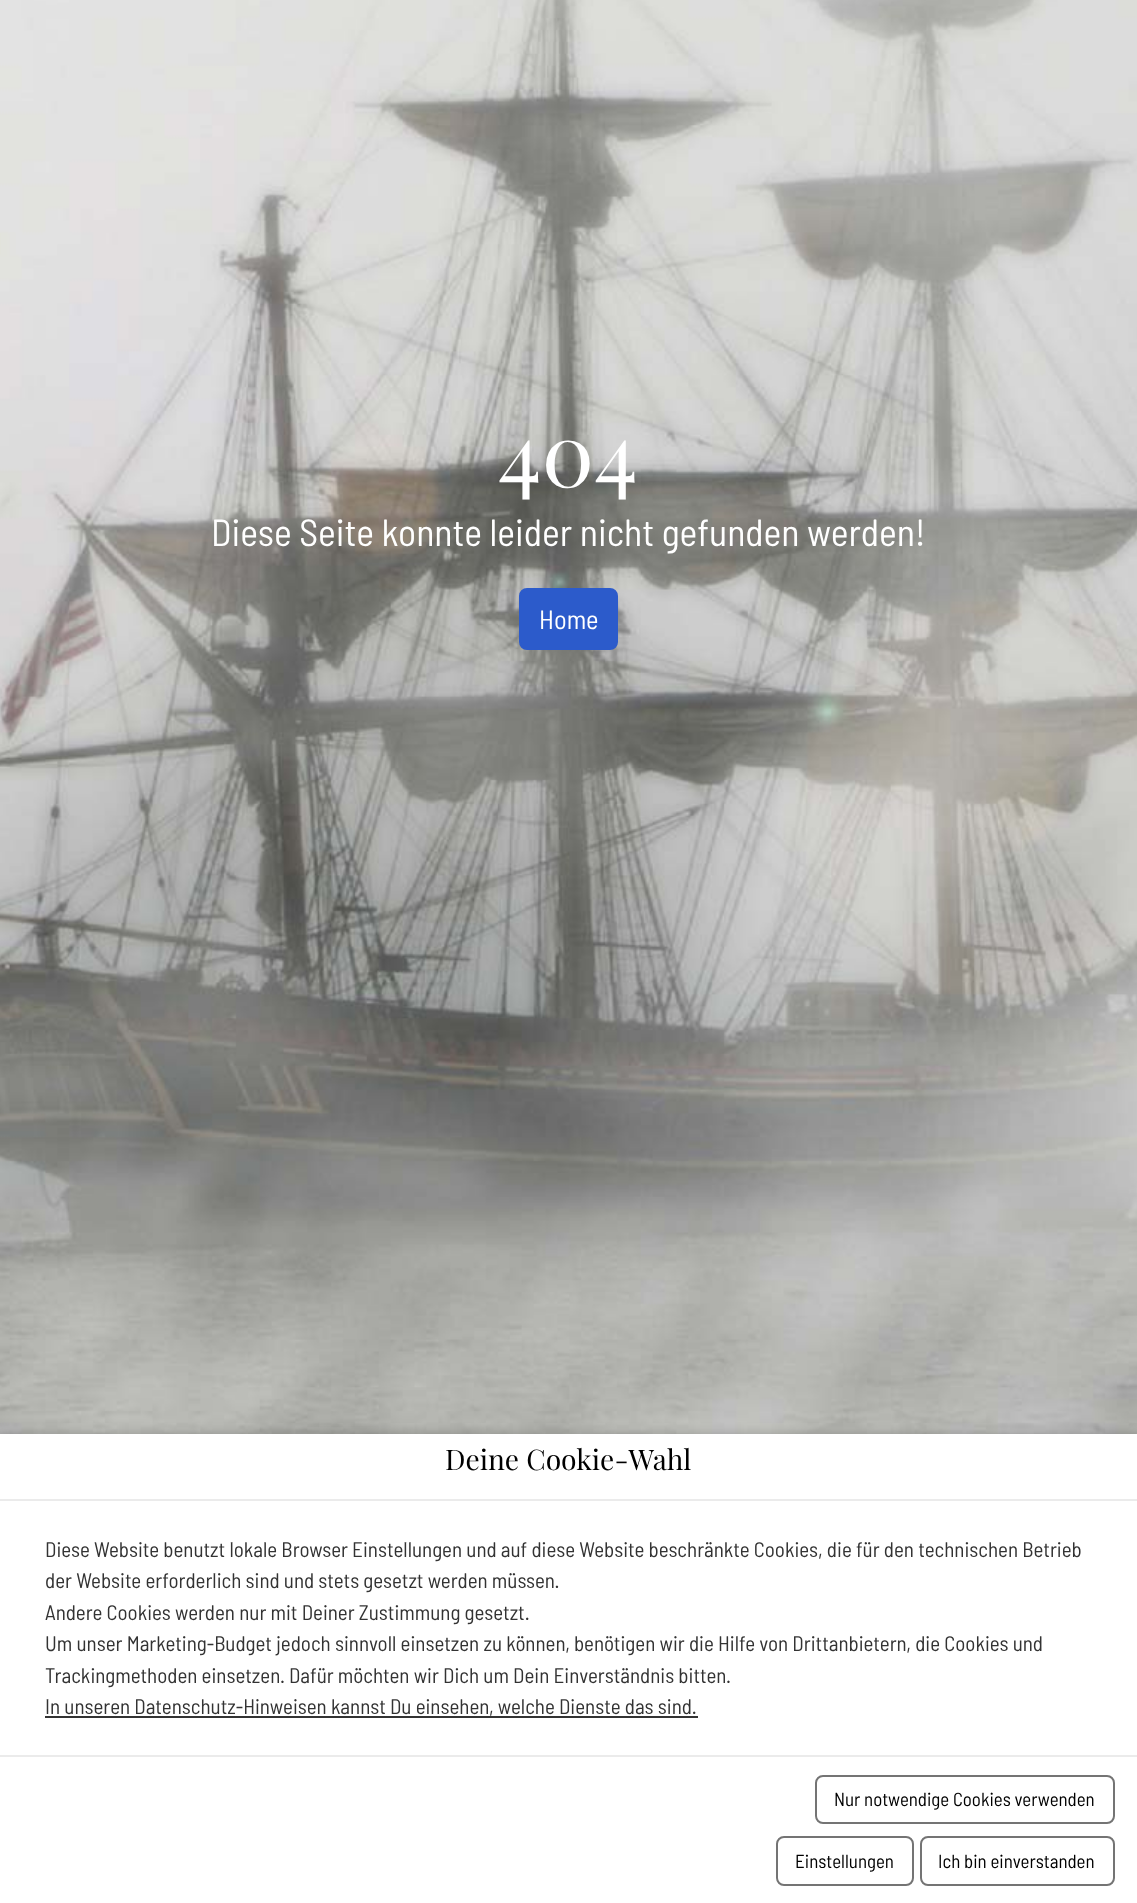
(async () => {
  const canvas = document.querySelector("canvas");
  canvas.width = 1137;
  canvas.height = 1903;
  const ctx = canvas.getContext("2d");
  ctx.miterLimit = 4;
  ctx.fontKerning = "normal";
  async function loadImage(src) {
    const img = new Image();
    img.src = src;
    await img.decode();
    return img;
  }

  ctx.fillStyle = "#ffffff";
  ctx.fillRect(0, 0, 1137, 1903);
  ctx.drawImage(await loadImage("img/1.png"), 0, 0, 1137, 1434);
  ctx.fillStyle = "#2c5bcb";
  ctx.beginPath();
  ctx.roundRect(520, 589, 97, 60, 7);
  ctx.fill();
  ctx.strokeStyle = "#2c5bcb";
  ctx.lineWidth = 2;
  ctx.stroke();
  ctx.fillStyle = "rgba(0, 0, 0, 0.2)";
  ctx.filter = "blur(6px)";
  ctx.beginPath();
  ctx.rect(0, 1434, 1137, 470);
  ctx.fill();
  ctx.filter = "none";
  for (const [x, y, w, h, color] of [
    [0, 1434, 1137, 469, "#ffffff"],
    [0, 1499, 1137, 2, "#ebebeb"],
    [45, 1716, 653, 2, "#333333"],
    [0, 1755, 1137, 2, "#ebebeb"],
  ]) {
    ctx.fillStyle = color;
    ctx.fillRect(x, y, w, h);
  }
  ctx.beginPath();
  ctx.roundRect(816, 1776, 298, 47, 7);
  ctx.strokeStyle = "#747474";
  ctx.stroke();
  ctx.beginPath();
  ctx.roundRect(777, 1837, 136, 48, 7);
  ctx.stroke();
  ctx.beginPath();
  ctx.roundRect(921, 1837, 193, 48, 7);
  ctx.stroke();
  ctx.font = "88px Playfair Display";
  ctx.fillStyle = "#ffffff";
  ctx.fillText("404", 498, 487);
  ctx.font = "37.75px Barlow Semi Condensed";
  ctx.fillText("Diese Seite konnte leider nicht gefunden werden!", 211, 546);
  ctx.font = "26.5px Barlow Semi Condensed";
  ctx.fillText("Home", 539, 629);
  ctx.font = "28.25px Playfair Display";
  ctx.fillStyle = "#000000";
  ctx.fillText("Deine Cookie-Wahl", 445, 1470);
  ctx.font = "21px Barlow Semi Condensed";
  ctx.fillStyle = "#333333";
  for (const [text, x, y] of [
    ["Diese Website benutzt lokale Browser Einstellungen und auf diese Website beschränkte Cookies, die für den technischen Betrieb", 45, 1557],
    ["der Website erforderlich sind und stets gesetzt werden müssen.", 45, 1588],
    ["Andere Cookies werden nur mit Deiner Zustimmung gesetzt.", 45, 1620],
    ["Um unser Marketing-Budget jedoch sinnvoll einsetzen zu können, benötigen wir die Hilfe von Drittanbietern, die Cookies und", 45, 1651],
    ["Trackingmethoden einsetzen. Dafür möchten wir Dich um Dein Einverständnis bitten.", 45, 1683],
    ["In unseren Datenschutz-Hinweisen kannst Du einsehen, welche Dienste das sind.", 45, 1714],
  ]) {
    ctx.fillText(text, x, y);
  }
  ctx.font = "18.9px Barlow Semi Condensed";
  ctx.fillStyle = "#000000";
  for (const [text, x, y] of [
    ["Nur notwendige Cookies verwenden", 834, 1806],
    ["Einstellungen", 795, 1868],
    ["Ich bin einverstanden", 938, 1868],
  ]) {
    ctx.fillText(text, x, y);
  }
})();
